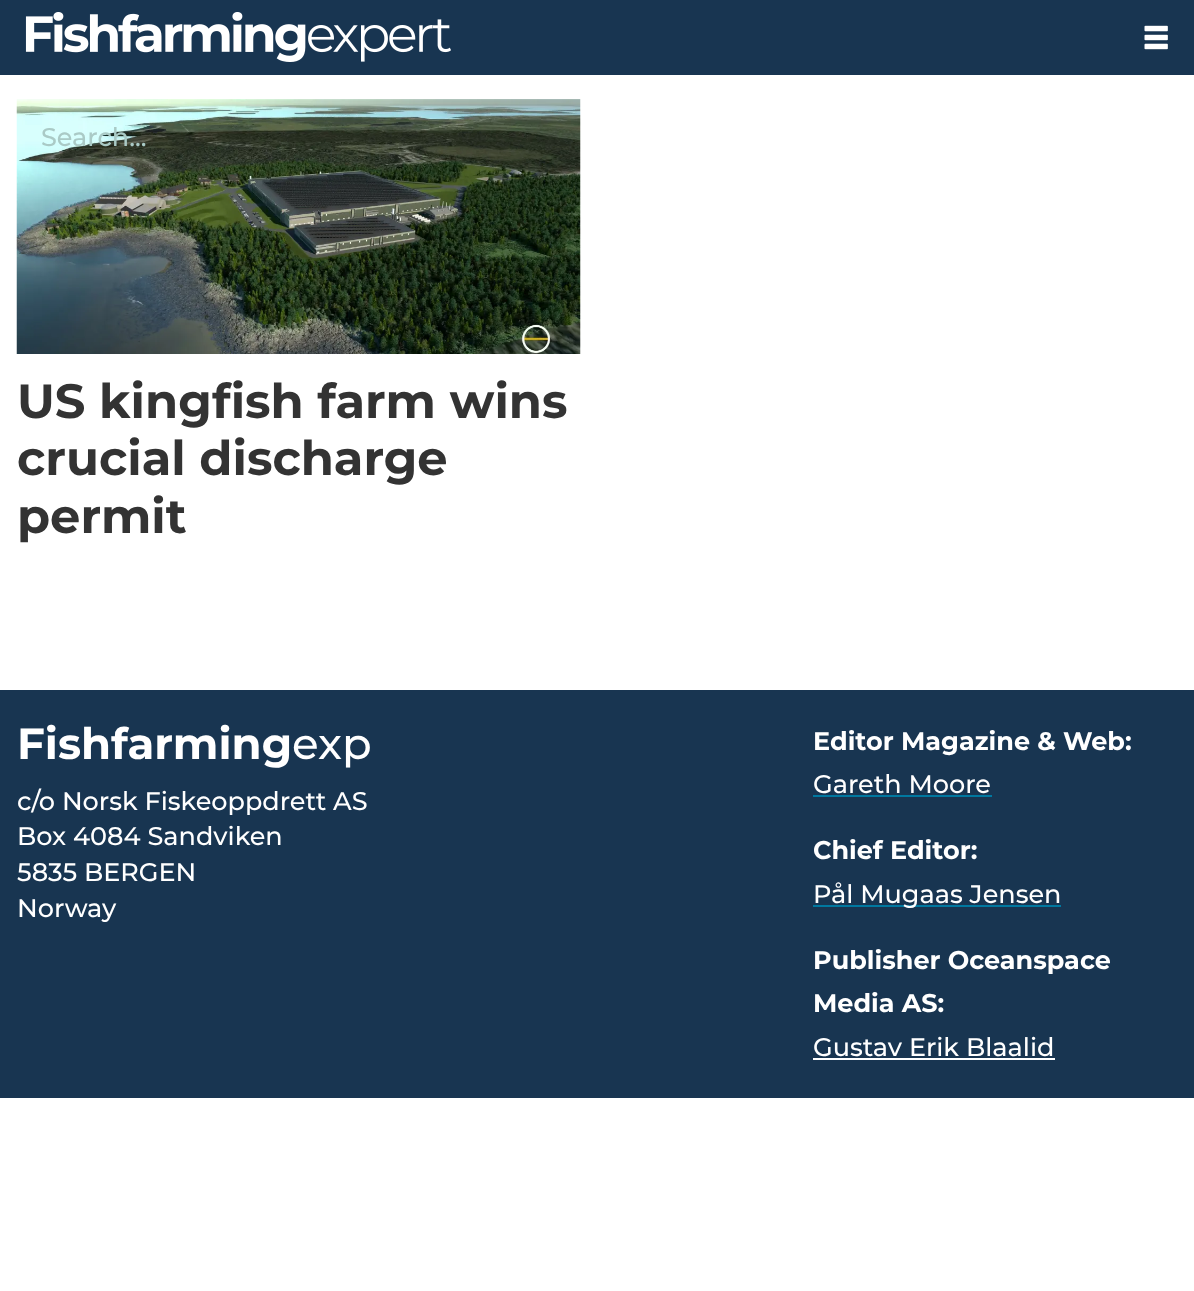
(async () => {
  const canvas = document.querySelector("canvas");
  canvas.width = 1194;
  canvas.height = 1291;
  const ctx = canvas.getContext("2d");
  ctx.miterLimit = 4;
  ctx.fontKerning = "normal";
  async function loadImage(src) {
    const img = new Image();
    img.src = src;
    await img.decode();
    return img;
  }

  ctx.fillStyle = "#ffffff";
  ctx.fillRect(0, 0, 1194, 1291);
  ctx.fillStyle = "#183551";
  ctx.fillRect(0, 0, 1194, 75);
  ctx.drawImage(await loadImage("img/1.png"), 25, 12, 426, 50);
  ctx.drawImage(await loadImage("img/2.png"), 1144, 25, 24, 25);
  ctx.drawImage(await loadImage("img/3.png"), 16, 99, 565, 255);
  for (const [x, y, w, h, color] of [
    [0, 690, 1194, 408, "#183551"],
    [813, 795, 179, 2, "#0078a0"],
    [813, 905, 248, 2, "#0078a0"],
    [813, 1058, 242, 2, "#ffffff"],
  ]) {
    ctx.fillStyle = color;
    ctx.fillRect(x, y, w, h);
  }
  ctx.font = "500 25.5px Montserrat";
  ctx.fillStyle = "#aacac6";
  ctx.fillText("Search...", 41, 146);
  ctx.font = "bold 48px Montserrat";
  ctx.fillStyle = "#333333";
  for (const [text, x, y] of [
    ["US kingfish farm wins", 17, 418],
    ["crucial discharge", 17, 475],
    ["permit", 17, 533],
  ]) {
    ctx.fillText(text, x, y);
  }
  ctx.font = "bold 43.5px Montserrat";
  ctx.fillStyle = "#ffffff";
  ctx.fillText("Fishfarming", 17, 759);
  ctx.font = "500 43.5px Montserrat";
  ctx.fillText("exp", 292, 759);
  ctx.font = "500 25.5px Montserrat";
  for (const [text, x, y] of [
    ["c/o Norsk Fiskeoppdrett AS", 17, 810],
    ["Box 4084 Sandviken", 17, 845],
    ["5835 BERGEN", 17, 881],
    ["Norway", 17, 917],
  ]) {
    ctx.fillText(text, x, y);
  }
  ctx.font = "bold 25.5px Montserrat";
  ctx.fillText("Editor Magazine & Web:", 813, 750);
  ctx.font = "500 25.5px Montserrat";
  ctx.fillText("Gareth Moore", 813, 793);
  ctx.font = "bold 25.5px Montserrat";
  ctx.fillText("Chief Editor:", 813, 859);
  ctx.font = "500 25.5px Montserrat";
  ctx.fillText("Pål Mugaas Jensen", 813, 903);
  ctx.font = "bold 25.5px Montserrat";
  ctx.fillText("Publisher Oceanspace", 813, 969);
  ctx.fillText("Media AS:", 813, 1012);
  ctx.font = "500 25.5px Montserrat";
  ctx.fillText("Gustav Erik Blaalid", 813, 1056);
})();
